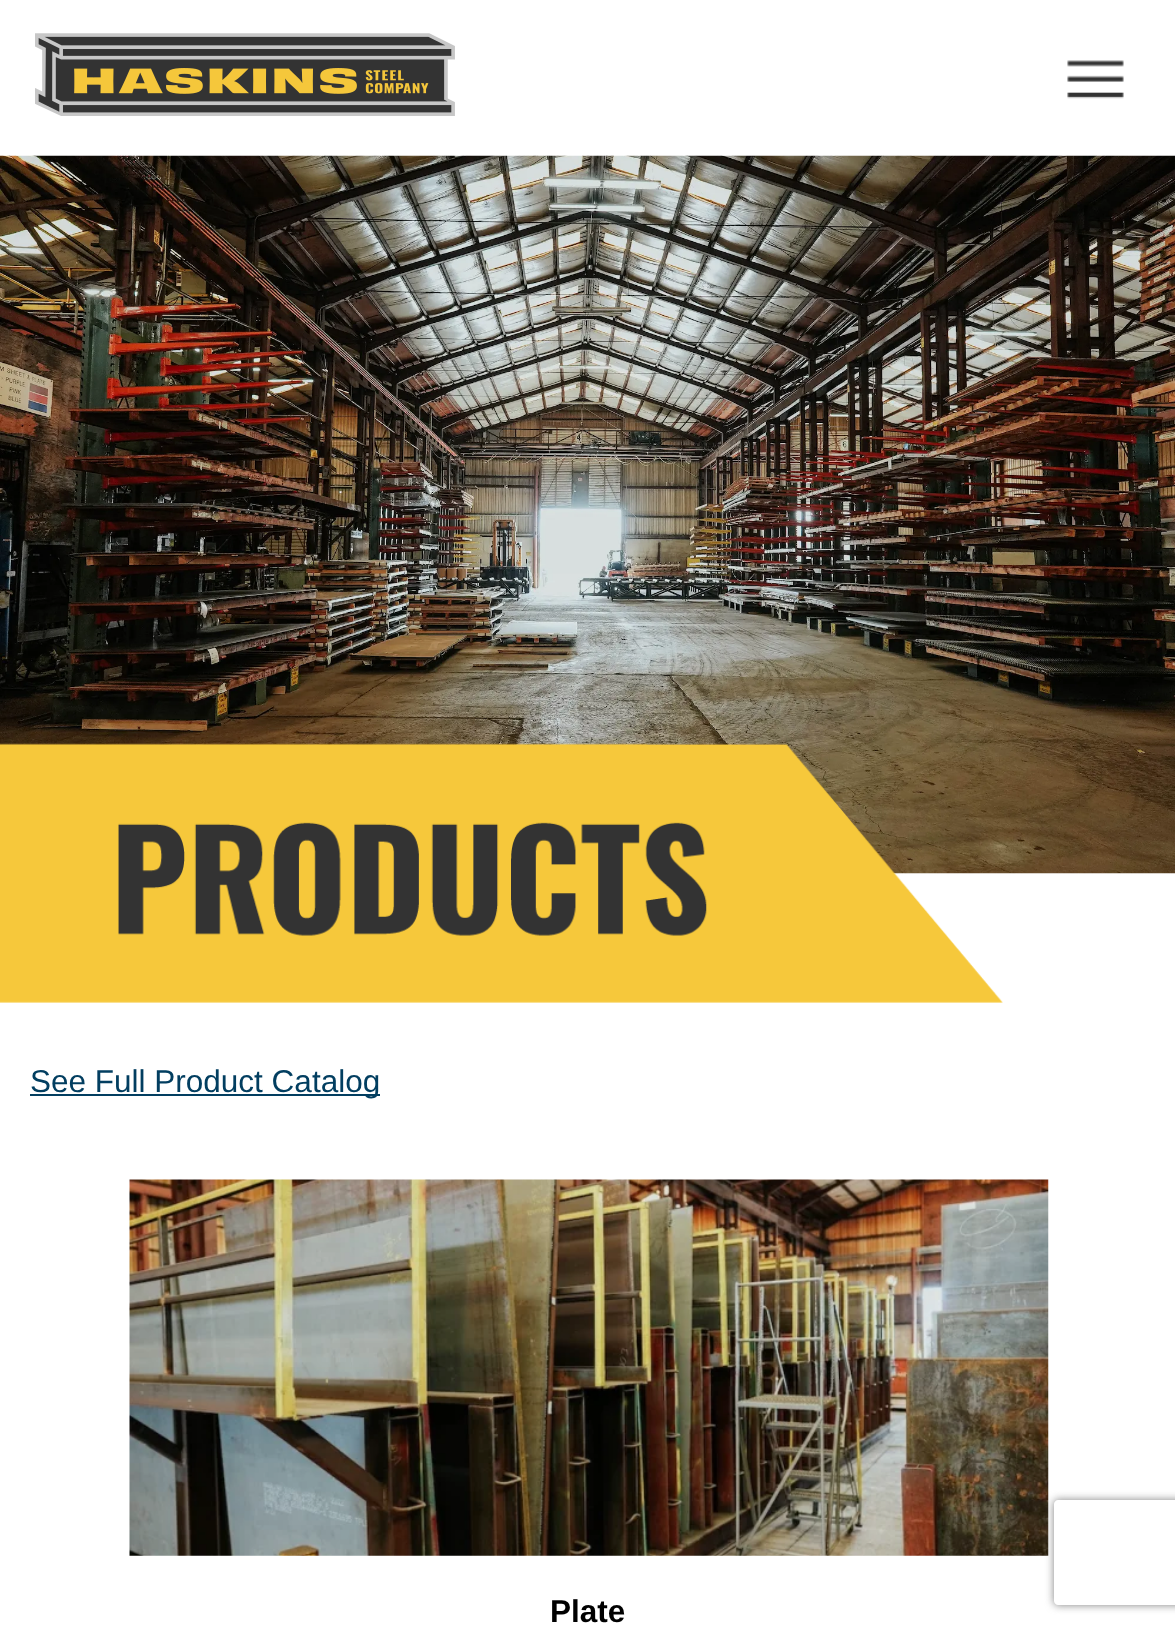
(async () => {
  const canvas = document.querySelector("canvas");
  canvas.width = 1175;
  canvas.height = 1628;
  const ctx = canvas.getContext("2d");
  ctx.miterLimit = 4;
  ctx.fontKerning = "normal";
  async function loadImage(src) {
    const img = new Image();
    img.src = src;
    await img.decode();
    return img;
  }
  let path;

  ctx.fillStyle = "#ffffff";
  ctx.fillRect(0, 0, 1175, 1628);
  ctx.drawImage(await loadImage("img/1.png"), 35, 33, 420, 83);
  ctx.drawImage(await loadImage("img/2.png"), 1067, 60, 57, 39);
  ctx.drawImage(await loadImage("img/3.png"), 0, 155, 1175, 719);
  ctx.drawImage(await loadImage("img/4.png"), 0, 743, 1003, 260);
  ctx.fillStyle = "#023e60";
  ctx.fillRect(30, 1094, 350, 2);
  ctx.drawImage(await loadImage("img/5.png"), 129, 1179, 920, 377);
  ctx.save();
  path = new Path2D("M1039 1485H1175V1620H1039ZM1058 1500H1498C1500 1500 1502 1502 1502 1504V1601C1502 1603 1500 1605 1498 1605H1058C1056 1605 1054 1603 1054 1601V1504C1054 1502 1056 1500 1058 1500Z");
  ctx.clip(path, "evenodd");
  ctx.fillStyle = "#808080";
  ctx.filter = "blur(4.5px)";
  ctx.beginPath();
  ctx.roundRect(1054, 1500, 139, 105, 4);
  ctx.fill();
  ctx.filter = "none";
  ctx.restore();
  ctx.font = "31.5px Liberation Sans";
  ctx.fillText("See Full Product Catalog", 30, 1092);
  ctx.font = "bold 31.5px Liberation Sans";
  ctx.fillStyle = "#000000";
  ctx.fillText("Plate", 550, 1622);
})();
